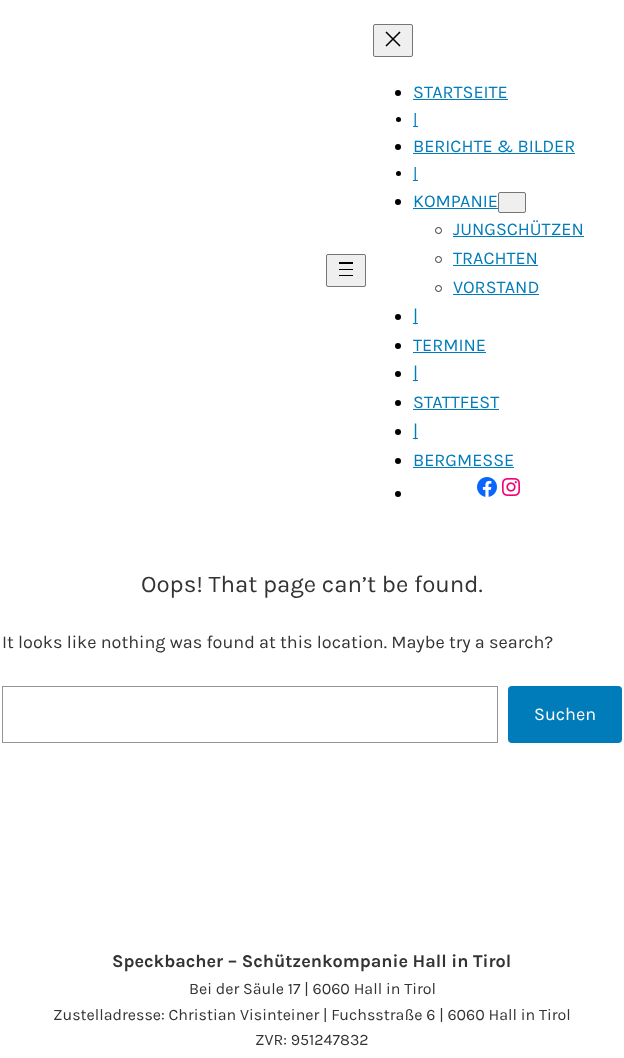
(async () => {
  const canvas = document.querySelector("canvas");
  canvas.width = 624;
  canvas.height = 1058;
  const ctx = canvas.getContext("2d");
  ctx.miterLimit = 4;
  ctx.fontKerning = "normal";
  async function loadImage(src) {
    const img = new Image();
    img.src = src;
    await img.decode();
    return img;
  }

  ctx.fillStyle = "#ffffff";
  ctx.fillRect(0, 0, 624, 1058);
  ctx.fillStyle = "#efefef";
  ctx.beginPath();
  ctx.roundRect(326.5, 254.5, 39, 32, 1.5);
  ctx.fill();
  ctx.strokeStyle = "#767676";
  ctx.stroke();
  for (const [x, y, w, h, color] of [
    [339, 262, 14, 2, "#000000"],
    [339, 269, 14, 1, "#000000"],
    [339, 275, 14, 1, "#000000"],
  ]) {
    ctx.fillStyle = color;
    ctx.fillRect(x, y, w, h);
  }
  ctx.fillStyle = "#efefef";
  ctx.beginPath();
  ctx.roundRect(373.5, 24.5, 39, 32, 1.5);
  ctx.fill();
  ctx.stroke();
  ctx.drawImage(await loadImage("img/1.png"), 385, 31, 16, 16);
  ctx.fillStyle = "#000000";
  ctx.beginPath();
  ctx.arc(398, 93, 3, 0, Math.PI * 2);
  ctx.fill();
  ctx.fillStyle = "#007cba";
  ctx.fillRect(413, 99, 95, 1);
  ctx.fillStyle = "#000000";
  ctx.beginPath();
  ctx.arc(398.5, 119.5, 2.5, 0, Math.PI * 2);
  ctx.fill();
  ctx.fillStyle = "#007cba";
  ctx.fillRect(413, 126, 5, 1);
  ctx.fillStyle = "#000000";
  ctx.beginPath();
  ctx.arc(398, 147, 3, 0, Math.PI * 2);
  ctx.fill();
  ctx.fillStyle = "#007cba";
  ctx.fillRect(413, 153, 162, 1);
  ctx.fillStyle = "#000000";
  ctx.beginPath();
  ctx.arc(398.5, 173.5, 2.5, 0, Math.PI * 2);
  ctx.fill();
  ctx.fillStyle = "#007cba";
  ctx.fillRect(413, 180, 5, 1);
  ctx.fillStyle = "#000000";
  ctx.beginPath();
  ctx.arc(398, 202, 3, 0, Math.PI * 2);
  ctx.fill();
  ctx.fillStyle = "#007cba";
  ctx.fillRect(413, 208, 85, 1);
  ctx.fillStyle = "#efefef";
  ctx.beginPath();
  ctx.roundRect(498.5, 192.5, 27, 20, 1.5);
  ctx.fill();
  ctx.stroke();
  ctx.beginPath();
  ctx.arc(438.5, 230.5, 3, 0, Math.PI * 2);
  ctx.strokeStyle = "#333333";
  ctx.stroke();
  ctx.fillStyle = "#007cba";
  ctx.fillRect(453, 236, 131, 1);
  ctx.beginPath();
  ctx.arc(438.5, 259.5, 3, 0, Math.PI * 2);
  ctx.stroke();
  ctx.fillRect(453, 265, 85, 1);
  ctx.beginPath();
  ctx.arc(438.5, 288.5, 3, 0, Math.PI * 2);
  ctx.stroke();
  ctx.fillRect(453, 294, 86, 1);
  ctx.fillStyle = "#000000";
  ctx.beginPath();
  ctx.arc(398, 317, 3, 0, Math.PI * 2);
  ctx.fill();
  ctx.fillStyle = "#007cba";
  ctx.fillRect(413, 323, 5, 1);
  ctx.fillStyle = "#000000";
  ctx.beginPath();
  ctx.arc(398, 346, 3, 0, Math.PI * 2);
  ctx.fill();
  ctx.fillStyle = "#007cba";
  ctx.fillRect(413, 352, 73, 1);
  ctx.fillStyle = "#000000";
  ctx.beginPath();
  ctx.arc(398, 374, 3, 0, Math.PI * 2);
  ctx.fill();
  ctx.fillStyle = "#007cba";
  ctx.fillRect(413, 380, 5, 1);
  ctx.fillStyle = "#000000";
  ctx.beginPath();
  ctx.arc(398, 403, 3, 0, Math.PI * 2);
  ctx.fill();
  ctx.fillStyle = "#007cba";
  ctx.fillRect(413, 409, 86, 1);
  ctx.fillStyle = "#000000";
  ctx.beginPath();
  ctx.arc(398, 432, 3, 0, Math.PI * 2);
  ctx.fill();
  ctx.fillStyle = "#007cba";
  ctx.fillRect(413, 438, 5, 1);
  ctx.fillStyle = "#000000";
  ctx.beginPath();
  ctx.arc(398, 461, 3, 0, Math.PI * 2);
  ctx.fill();
  ctx.fillStyle = "#007cba";
  ctx.fillRect(413, 467, 101, 1);
  ctx.fillStyle = "#000000";
  ctx.beginPath();
  ctx.arc(398, 494, 3, 0, Math.PI * 2);
  ctx.fill();
  ctx.drawImage(await loadImage("img/2.png"), 477, 477, 20, 20);
  ctx.drawImage(await loadImage("img/3.png"), 502, 478, 18, 18);
  ctx.strokeStyle = "#949494";
  ctx.strokeRect(2.5, 686.5, 495, 56);
  ctx.fillStyle = "#007cba";
  ctx.beginPath();
  ctx.roundRect(508, 686, 114, 57, 4);
  ctx.fill();
  ctx.font = "18px Karla";
  ctx.fillText("STARTSEITE", 413, 98);
  ctx.font = "16px Karla";
  ctx.fillText("|", 413, 125);
  ctx.font = "18px Karla";
  ctx.fillText("BERICHTE & BILDER", 413, 152);
  ctx.font = "16px Karla";
  ctx.fillText("|", 413, 179);
  ctx.font = "18px Karla";
  for (const [text, x, y] of [
    ["KOMPANIE", 413, 207],
    ["JUNGSCHÜTZEN", 453, 235],
    ["TRACHTEN", 453, 264],
    ["VORSTAND", 453, 293],
    ["|", 413, 322],
    ["TERMINE", 413, 351],
    ["|", 413, 379],
    ["STATTFEST", 413, 408],
    ["|", 413, 437],
    ["BERGMESSE", 413, 466],
  ]) {
    ctx.fillText(text, x, y);
  }
  ctx.font = "24px Karla";
  ctx.fillStyle = "#333333";
  ctx.fillText("Oops! That page can’t be found.", 141, 592);
  ctx.font = "18px Karla";
  ctx.fillText("It looks like nothing was found at this location. Maybe try a search?", 2, 648);
  ctx.fillStyle = "#ffffff";
  ctx.fillText("Suchen", 534, 720);
  ctx.font = "bold 18px Karla";
  ctx.fillStyle = "#333333";
  ctx.fillText("Speckbacher – Schützenkompanie Hall in Tirol", 112, 967);
  ctx.font = "16px Karla";
  for (const [text, x, y] of [
    ["Bei der Säule 17 | 6060 Hall in Tirol", 189, 994],
    ["Zustelladresse: Christian Visinteiner | Fuchsstraße 6 | 6060 Hall in Tirol", 53, 1020],
    ["ZVR: 951247832", 255, 1045],
  ]) {
    ctx.fillText(text, x, y);
  }
})();
